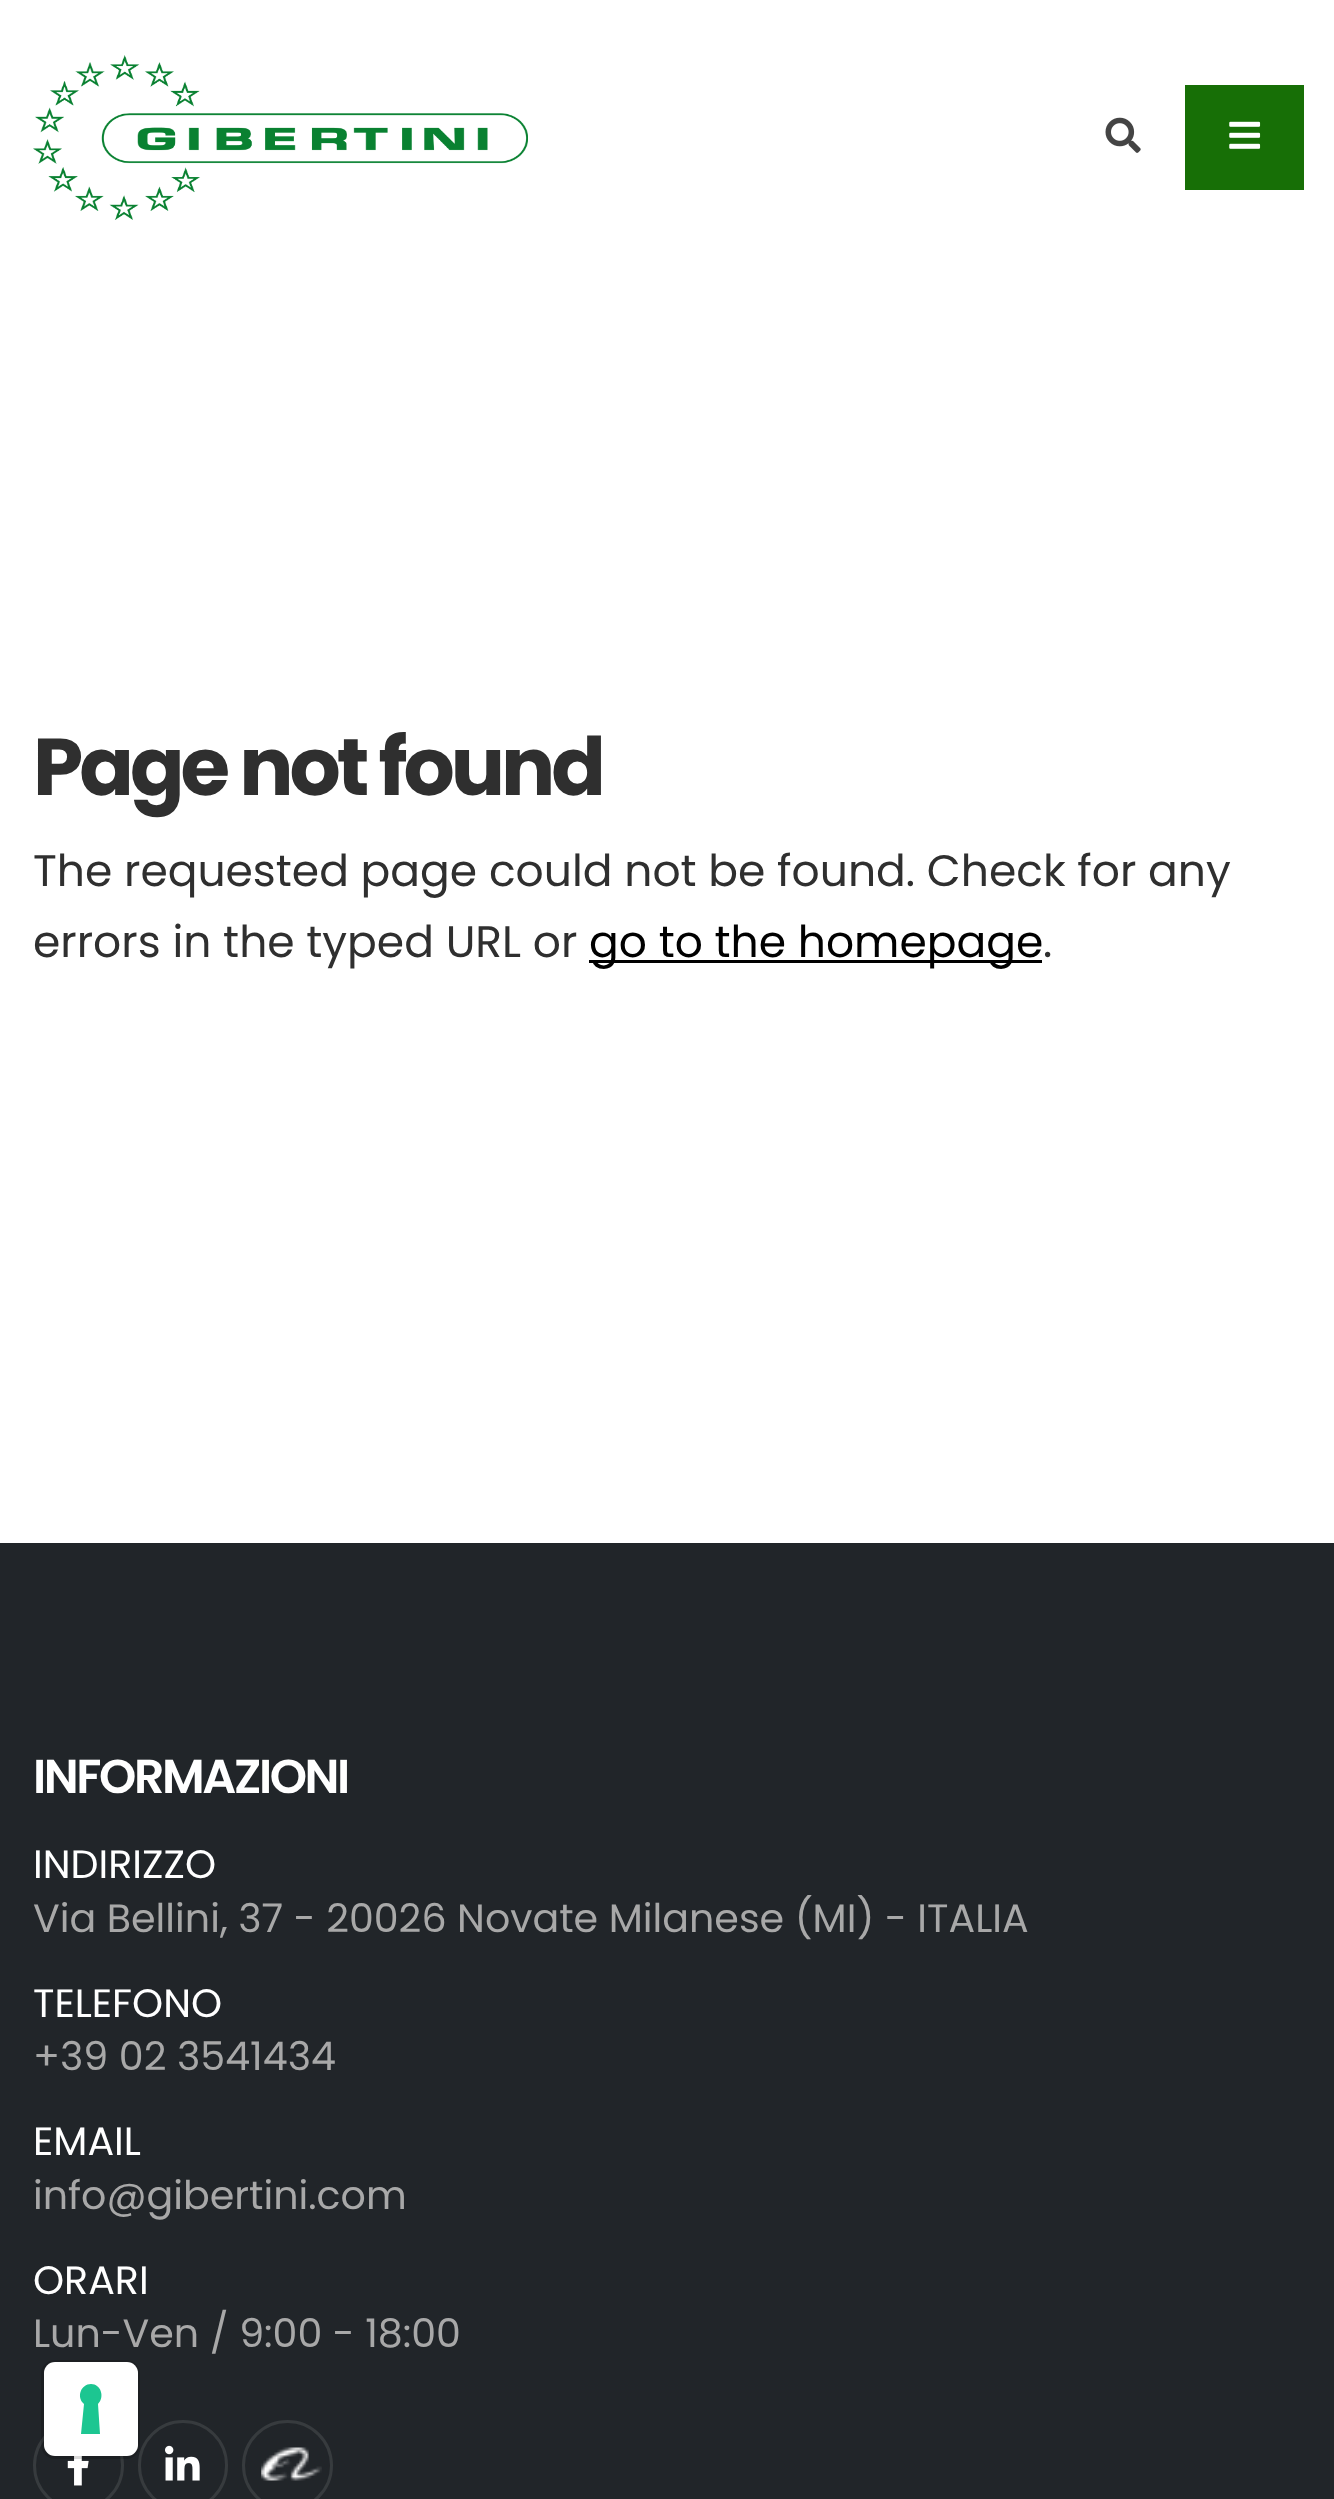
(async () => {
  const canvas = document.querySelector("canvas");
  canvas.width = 1334;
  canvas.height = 2499;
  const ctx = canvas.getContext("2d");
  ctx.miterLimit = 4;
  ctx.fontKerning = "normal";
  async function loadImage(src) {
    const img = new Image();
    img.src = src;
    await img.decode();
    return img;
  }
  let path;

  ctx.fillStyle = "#ffffff";
  ctx.fillRect(0, 0, 1334, 2499);
  ctx.drawImage(await loadImage("img/1.png"), 33, 55, 495, 165);
  ctx.drawImage(await loadImage("img/2.png"), 1105, 117, 36, 36);
  ctx.fillStyle = "#176f06";
  ctx.fillRect(1185, 85, 119, 105);
  ctx.drawImage(await loadImage("img/3.png"), 1229, 121, 32, 28);
  ctx.fillStyle = "#000000";
  ctx.fillRect(589, 960, 453, 3);
  ctx.fillStyle = "#212529";
  ctx.fillRect(0, 1543, 1334, 956);
  ctx.beginPath();
  ctx.arc(78.5, 2465.5, 44, 0, Math.PI * 2);
  ctx.strokeStyle = "#373b3e";
  ctx.lineWidth = 3;
  ctx.stroke();
  ctx.drawImage(await loadImage("img/4.png"), 67, 2456, 22, 30);
  ctx.beginPath();
  ctx.roundRect(139.5, 2421.5, 87, 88, 43.5);
  ctx.stroke();
  ctx.drawImage(await loadImage("img/5.png"), 165, 2445, 35, 36);
  ctx.beginPath();
  ctx.arc(287.5, 2465.5, 44, 0, Math.PI * 2);
  ctx.stroke();
  ctx.drawImage(await loadImage("img/6.png"), 261, 2447, 61, 34);
  ctx.beginPath();
  ctx.roundRect(42.5, 2361.5, 96, 96, 12.5);
  ctx.strokeStyle = "rgba(0, 0, 0, 0.15)";
  ctx.stroke();
  ctx.fillStyle = "#ffffff";
  ctx.beginPath();
  ctx.roundRect(44, 2362, 94, 94, 11);
  ctx.fill();
  ctx.fillStyle = "#1cc691";
  path = new Path2D("M91 2384C101 2384 105 2397 98 2404L100 2434H81L84 2404C76 2397 81 2384 91 2384Z");
  ctx.fill(path, "evenodd");
  ctx.letterSpacing = "-4px";
  ctx.font = "bold 80.5px Poppins";
  ctx.fillStyle = "#2f2f2f";
  ctx.fillText("Page not found", 33, 795);
  ctx.letterSpacing = "0px";
  ctx.font = "44px Poppins";
  ctx.fillText("The requested page could not be found. Check for any", 33, 886);
  ctx.fillText("errors in the typed URL or", 33, 957);
  ctx.fillStyle = "#000000";
  ctx.fillText("go to the homepage", 589, 957);
  ctx.fillStyle = "#2f2f2f";
  ctx.fillText(".", 1043, 957);
  ctx.letterSpacing = "-2.4px";
  ctx.font = "600 47.5px Poppins";
  ctx.fillStyle = "#ffffff";
  ctx.fillText("INFORMAZIONI", 33, 1793);
  ctx.letterSpacing = "0px";
  ctx.font = "39.6px Poppins";
  ctx.fillText("INDIRIZZO", 33, 1878);
  ctx.fillStyle = "#a8a8a8";
  ctx.fillText("Via Bellini, 37 - 20026 Novate Milanese (MI) - ITALIA", 33, 1932);
  ctx.fillStyle = "#ffffff";
  ctx.fillText("TELEFONO", 33, 2017);
  ctx.fillStyle = "#a8a8a8";
  ctx.fillText("+39 02 3541434", 33, 2070);
  ctx.fillStyle = "#ffffff";
  ctx.fillText("EMAIL", 33, 2155);
  ctx.fillStyle = "#a8a8a8";
  ctx.fillText("info@gibertini.com", 33, 2209);
  ctx.fillStyle = "#ffffff";
  ctx.fillText("ORARI", 33, 2294);
  ctx.fillStyle = "#a8a8a8";
  ctx.fillText("Lun-Ven / 9:00 - 18:00", 33, 2347);
})();
